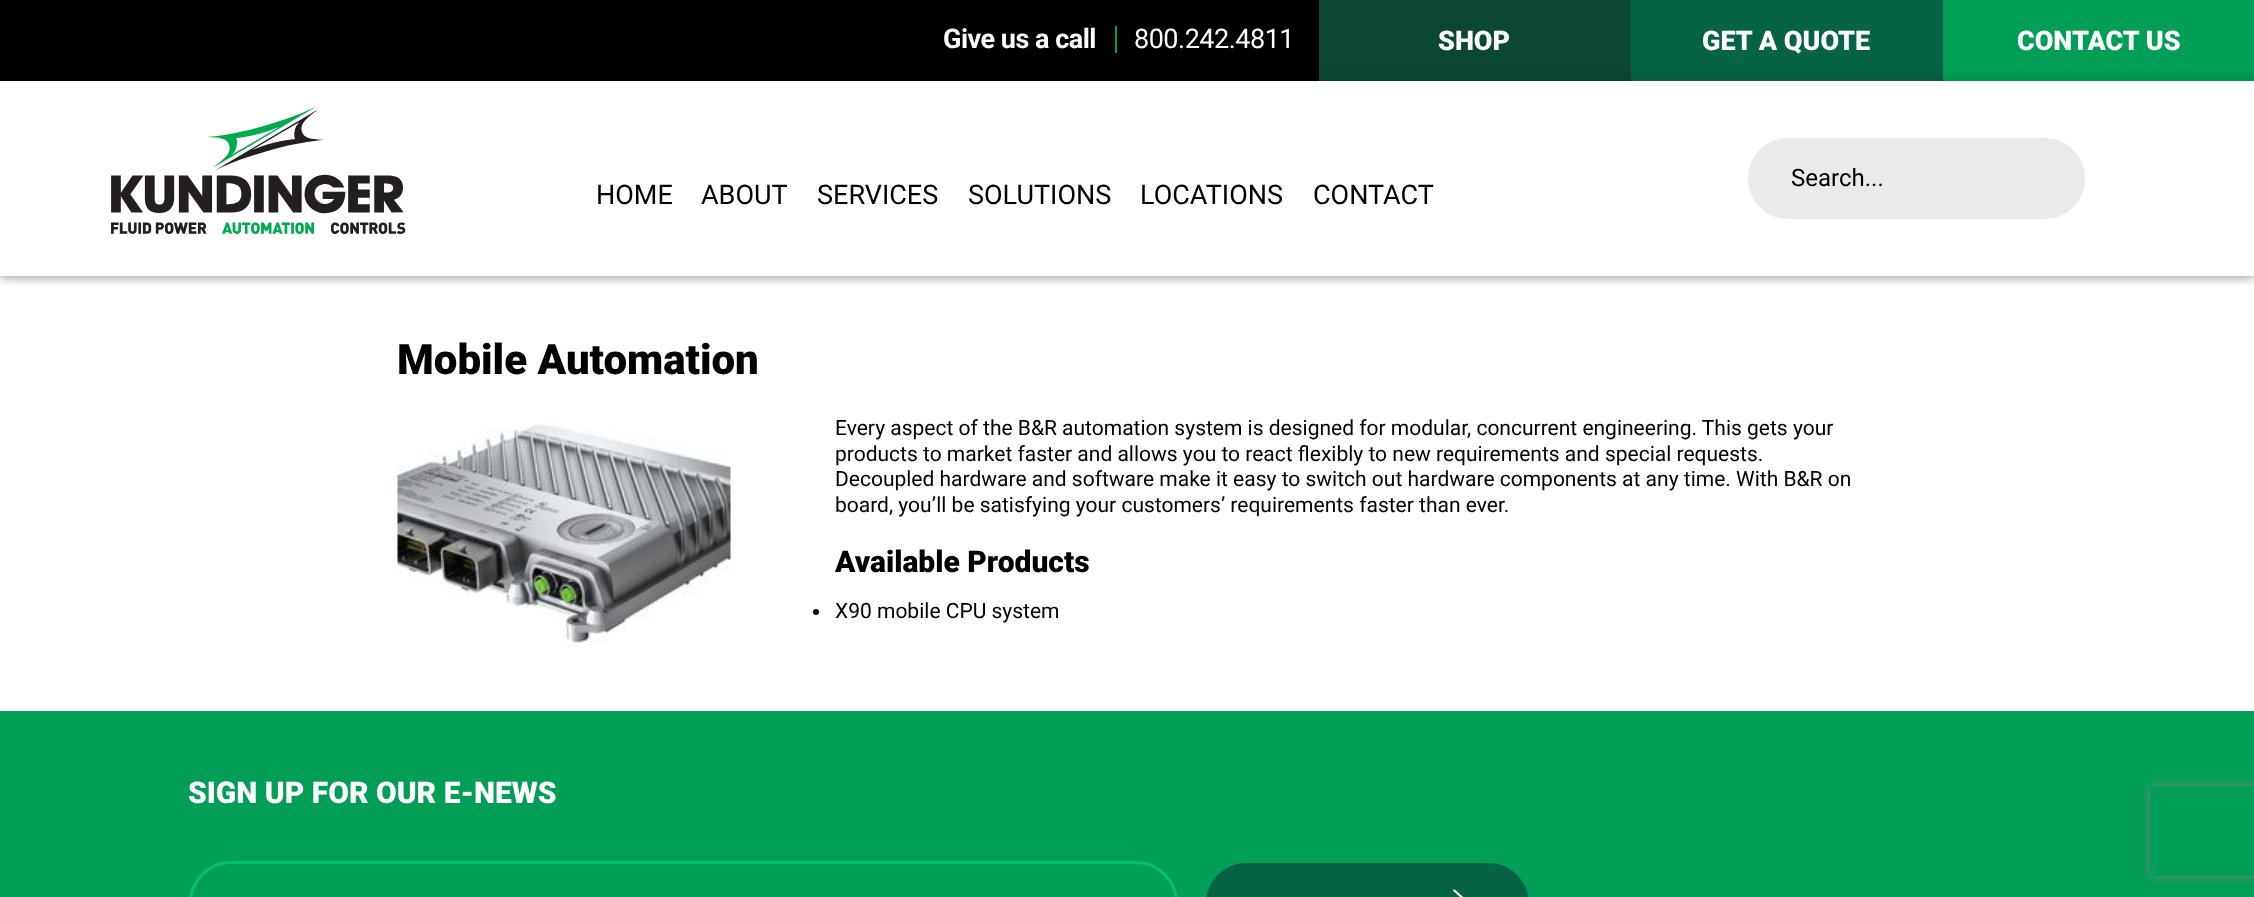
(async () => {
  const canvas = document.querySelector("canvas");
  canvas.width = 2254;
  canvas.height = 897;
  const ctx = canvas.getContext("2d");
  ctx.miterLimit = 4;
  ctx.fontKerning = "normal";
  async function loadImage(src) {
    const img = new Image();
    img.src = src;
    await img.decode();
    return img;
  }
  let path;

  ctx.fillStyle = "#ffffff";
  ctx.fillRect(0, 0, 2254, 897);
  ctx.save();
  ctx.beginPath();
  ctx.rect(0, 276, 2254, 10);
  ctx.clip();
  ctx.fillStyle = "rgba(0, 0, 0, 0.5)";
  ctx.filter = "blur(6px)";
  ctx.beginPath();
  ctx.rect(0, 81, 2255, 195);
  ctx.fill();
  ctx.filter = "none";
  ctx.restore();
  for (const [x, y, w, h, color] of [
    [0, 0, 1319, 81, "#000000"],
    [1115, 26, 2, 27, "#009e56"],
    [1319, 0, 312, 81, "#0a4834"],
    [1631, 0, 312, 81, "#066345"],
    [1943, 0, 311, 81, "#009e56"],
  ]) {
    ctx.fillStyle = color;
    ctx.fillRect(x, y, w, h);
  }
  ctx.save();
  ctx.beginPath();
  ctx.rect(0, 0, 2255, 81);
  ctx.clip();
  ctx.fillStyle = "rgba(0, 0, 0, 0.6)";
  ctx.filter = "blur(6px)";
  ctx.beginPath();
  ctx.rect(-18, 81, 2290, 2);
  ctx.fill();
  ctx.filter = "none";
  ctx.restore();
  ctx.drawImage(await loadImage("img/1.png"), 111, 107, 295, 127);
  ctx.fillStyle = "#eaeaea";
  ctx.beginPath();
  ctx.roundRect(1749, 139, 335, 79, 39.5);
  ctx.fill();
  ctx.strokeStyle = "#eaeaea";
  ctx.lineWidth = 2;
  ctx.stroke();
  ctx.drawImage(await loadImage("img/2.png"), 397, 424, 334, 220);
  ctx.fillStyle = "#000000";
  ctx.beginPath();
  ctx.arc(816, 612, 3, 0, Math.PI * 2);
  ctx.fill();
  ctx.fillStyle = "#009e56";
  ctx.fillRect(0, 711, 2254, 186);
  ctx.beginPath();
  ctx.roundRect(190.5, 862.5, 986, 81, 43.5);
  ctx.strokeStyle = "#04c06a";
  ctx.lineWidth = 3;
  ctx.stroke();
  ctx.fillStyle = "#066345";
  ctx.beginPath();
  ctx.roundRect(1206, 863, 323, 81, 47);
  ctx.fill();
  ctx.drawImage(await loadImage("img/3.png"), 1452, 889, 12, 8);
  ctx.save();
  path = new Path2D("M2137 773H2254V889H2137ZM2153 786H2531C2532.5 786 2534 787.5 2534 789V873C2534 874.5 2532.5 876 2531 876H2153C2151.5 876 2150 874.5 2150 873V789C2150 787.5 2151.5 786 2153 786Z");
  ctx.clip(path, "evenodd");
  ctx.fillStyle = "#808080";
  ctx.filter = "blur(4px)";
  ctx.beginPath();
  ctx.roundRect(2150, 786, 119, 90, 3);
  ctx.fill();
  ctx.filter = "none";
  ctx.restore();
  ctx.letterSpacing = "-0.5px";
  ctx.font = "bold 27px Roboto";
  ctx.fillStyle = "#ffffff";
  ctx.fillText("Give us a call", 943, 48);
  ctx.font = "27px Roboto";
  ctx.fillText("800.242.4811", 1134, 48);
  ctx.letterSpacing = "0px";
  ctx.font = "900 27px Roboto";
  for (const [text, x, y] of [
    ["SHOP", 1438, 50],
    ["GET A QUOTE", 1702, 50],
    ["CONTACT US", 2017, 50],
  ]) {
    ctx.fillText(text, x, y);
  }
  ctx.font = "24px Roboto";
  ctx.fillStyle = "#000000";
  ctx.fillText("Search...", 1791, 186);
  ctx.font = "27px Roboto";
  for (const [text, x, y] of [
    ["HOME", 596, 204],
    ["ABOUT", 701, 204],
    ["SERVICES", 817, 204],
    ["SOLUTIONS", 968, 204],
    ["LOCATIONS", 1140, 204],
    ["CONTACT", 1313, 204],
  ]) {
    ctx.fillText(text, x, y);
  }
  ctx.font = "900 42px Roboto";
  ctx.fillText("Mobile Automation", 397, 374);
  ctx.font = "21px Roboto";
  for (const [text, x, y] of [
    ["Every aspect of the B&R automation system is designed for modular, concurrent engineering. This gets your", 835, 435],
    ["products to market faster and allows you to react flexibly to new requirements and special requests.", 835, 461],
    ["Decoupled hardware and software make it easy to switch out hardware components at any time. With B&R on", 835, 486],
    ["board, you’ll be satisfying your customers’ requirements faster than ever.", 835, 512],
  ]) {
    ctx.fillText(text, x, y);
  }
  ctx.font = "900 30px Roboto";
  ctx.fillText("Available Products", 835, 572);
  ctx.font = "21px Roboto";
  ctx.fillText("X90 mobile CPU system", 835, 618);
  ctx.font = "900 30px Roboto";
  ctx.fillStyle = "#ffffff";
  ctx.fillText("SIGN UP FOR OUR E-NEWS", 188, 803);
})();
